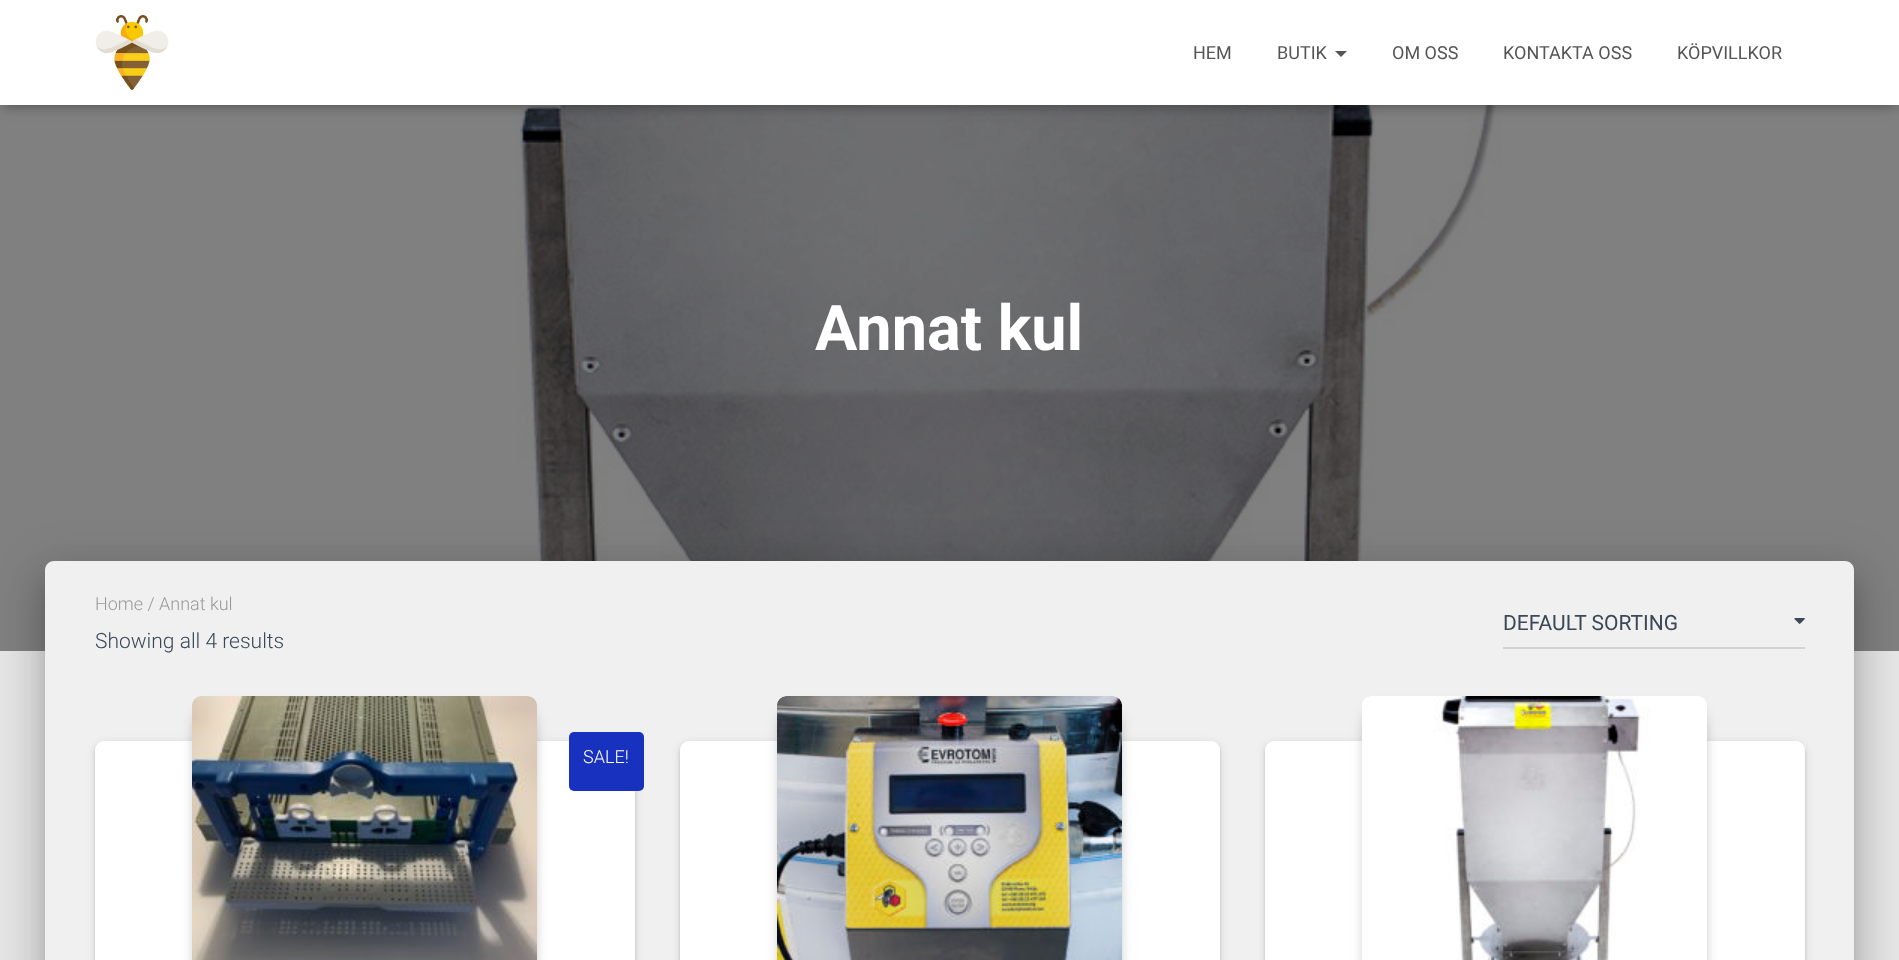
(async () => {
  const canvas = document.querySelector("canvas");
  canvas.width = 1899;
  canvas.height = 960;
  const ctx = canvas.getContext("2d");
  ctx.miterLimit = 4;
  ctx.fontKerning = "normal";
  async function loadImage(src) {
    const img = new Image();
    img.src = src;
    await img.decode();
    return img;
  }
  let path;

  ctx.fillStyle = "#e5e5e5";
  ctx.fillRect(0, 0, 1899, 960);
  ctx.drawImage(await loadImage("img/2.png"), 0, 105, 1899, 546);
  ctx.fillStyle = "rgba(0, 0, 0, 0.1)";
  ctx.filter = "blur(4px)";
  ctx.beginPath();
  ctx.rect(3, 9, 1893, 99);
  ctx.fill();
  ctx.filter = "none";
  ctx.fillStyle = "rgba(0, 0, 0, 0.12)";
  ctx.filter = "blur(7.5px)";
  ctx.beginPath();
  ctx.rect(0, 2, 1899, 105);
  ctx.fill();
  ctx.filter = "none";
  ctx.fillStyle = "rgba(0, 0, 0, 0.42)";
  ctx.filter = "blur(7.5px)";
  ctx.beginPath();
  ctx.rect(9, 11, 1881, 87);
  ctx.fill();
  ctx.filter = "none";
  ctx.fillStyle = "#ffffff";
  ctx.fillRect(0, 0, 1899, 105);
  ctx.drawImage(await loadImage("img/1.png"), 95, 15, 74, 75);
  ctx.fillStyle = "#555555";
  path = new Path2D("M1335 51H1347L1341 57Z");
  ctx.fill(path);
  ctx.fillStyle = "rgba(0, 0, 0, 0.2)";
  ctx.filter = "blur(7.5px)";
  ctx.beginPath();
  ctx.roundRect(53, 581, 1794, 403, 1.5);
  ctx.fill();
  ctx.filter = "none";
  ctx.fillStyle = "rgba(0, 0, 0, 0.12)";
  ctx.filter = "blur(22.5px)";
  ctx.beginPath();
  ctx.roundRect(38, 563, 1824, 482, 17);
  ctx.fill();
  ctx.filter = "none";
  ctx.fillStyle = "rgba(0, 0, 0, 0.14)";
  ctx.filter = "blur(18px)";
  ctx.beginPath();
  ctx.roundRect(42, 582, 1815, 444, 12);
  ctx.fill();
  ctx.filter = "none";
  ctx.fillStyle = "#f0f0f0";
  path = new Path2D("M54 561H1845C1850 561 1854 565 1854 570V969H45V570C45 565 49 561 54 561Z");
  ctx.fill(path);
  ctx.fillStyle = "#d2d2d2";
  ctx.fillRect(1503, 647, 302, 2);
  ctx.drawImage(await loadImage("img/3.png"), 1794, 618, 11, 6);
  ctx.fillStyle = "rgba(0, 0, 0, 0.12)";
  ctx.filter = "blur(4px)";
  ctx.beginPath();
  ctx.roundRect(95, 743, 540, 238, 9);
  ctx.fill();
  ctx.filter = "none";
  ctx.fillStyle = "rgba(0, 0, 0, 0.14)";
  ctx.filter = "blur(1.5px)";
  ctx.beginPath();
  ctx.roundRect(95, 744, 540, 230, 9);
  ctx.fill();
  ctx.filter = "none";
  ctx.fillStyle = "#ffffff";
  ctx.beginPath();
  ctx.roundRect(95, 741, 540, 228, 9);
  ctx.fill();
  ctx.fillStyle = "rgba(0, 0, 0, 0.2)";
  ctx.filter = "blur(7.5px)";
  ctx.beginPath();
  ctx.roundRect(200, 719, 330, 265, 1.5);
  ctx.fill();
  ctx.filter = "none";
  ctx.filter = "blur(7.5px)";
  ctx.beginPath();
  ctx.roundRect(200, 716, 330, 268, 1.5);
  ctx.fill();
  ctx.filter = "none";
  ctx.fillStyle = "rgba(0, 0, 0, 0.24)";
  ctx.filter = "blur(11px)";
  ctx.beginPath();
  ctx.rect(204, 716, 321, 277);
  ctx.fill();
  ctx.filter = "none";
  ctx.drawImage(await loadImage("img/4.png"), 192, 696, 345, 264);
  ctx.fillStyle = "#1831bf";
  ctx.beginPath();
  ctx.roundRect(569, 732, 75, 59, 5);
  ctx.fill();
  ctx.fillStyle = "rgba(0, 0, 0, 0.12)";
  ctx.filter = "blur(4px)";
  ctx.beginPath();
  ctx.roundRect(680, 743, 540, 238, 9);
  ctx.fill();
  ctx.filter = "none";
  ctx.fillStyle = "rgba(0, 0, 0, 0.14)";
  ctx.filter = "blur(1.5px)";
  ctx.beginPath();
  ctx.roundRect(680, 744, 540, 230, 9);
  ctx.fill();
  ctx.filter = "none";
  ctx.fillStyle = "#ffffff";
  ctx.beginPath();
  ctx.roundRect(680, 741, 540, 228, 9);
  ctx.fill();
  ctx.fillStyle = "rgba(0, 0, 0, 0.2)";
  ctx.filter = "blur(7.5px)";
  ctx.beginPath();
  ctx.roundRect(785, 719, 330, 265, 1.5);
  ctx.fill();
  ctx.filter = "none";
  ctx.filter = "blur(7.5px)";
  ctx.beginPath();
  ctx.roundRect(785, 716, 330, 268, 1.5);
  ctx.fill();
  ctx.filter = "none";
  ctx.fillStyle = "rgba(0, 0, 0, 0.24)";
  ctx.filter = "blur(11px)";
  ctx.beginPath();
  ctx.rect(789, 716, 321, 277);
  ctx.fill();
  ctx.filter = "none";
  ctx.drawImage(await loadImage("img/5.png"), 777, 696, 345, 264);
  ctx.fillStyle = "rgba(0, 0, 0, 0.12)";
  ctx.filter = "blur(4px)";
  ctx.beginPath();
  ctx.roundRect(1265, 743, 540, 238, 9);
  ctx.fill();
  ctx.filter = "none";
  ctx.fillStyle = "rgba(0, 0, 0, 0.14)";
  ctx.filter = "blur(1.5px)";
  ctx.beginPath();
  ctx.roundRect(1265, 744, 540, 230, 9);
  ctx.fill();
  ctx.filter = "none";
  ctx.fillStyle = "#ffffff";
  ctx.beginPath();
  ctx.roundRect(1265, 741, 540, 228, 9);
  ctx.fill();
  ctx.fillStyle = "rgba(0, 0, 0, 0.2)";
  ctx.filter = "blur(7.5px)";
  ctx.beginPath();
  ctx.roundRect(1370, 719, 330, 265, 1.5);
  ctx.fill();
  ctx.filter = "none";
  ctx.filter = "blur(7.5px)";
  ctx.beginPath();
  ctx.roundRect(1370, 716, 330, 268, 1.5);
  ctx.fill();
  ctx.filter = "none";
  ctx.fillStyle = "rgba(0, 0, 0, 0.24)";
  ctx.filter = "blur(11px)";
  ctx.beginPath();
  ctx.rect(1374, 716, 321, 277);
  ctx.fill();
  ctx.filter = "none";
  ctx.drawImage(await loadImage("img/6.png"), 1362, 696, 345, 264);
  ctx.font = "18px Roboto";
  ctx.fillStyle = "#555555";
  for (const [text, x, y] of [
    ["HEM", 1193, 59],
    ["BUTIK", 1277, 59],
    ["OM OSS", 1392, 59],
    ["KONTAKTA OSS", 1503, 59],
    ["KÖPVILLKOR", 1677, 59],
  ]) {
    ctx.fillText(text, x, y);
  }
  ctx.font = "bold 63px Roboto";
  ctx.fillStyle = "#ffffff";
  ctx.fillText("Annat kul", 815, 350);
  ctx.font = "300 18px Roboto";
  ctx.fillStyle = "#999999";
  ctx.fillText("Home / Annat kul", 95, 610);
  ctx.font = "300 21px Roboto";
  ctx.fillStyle = "#3c4858";
  ctx.fillText("Showing all 4 results", 95, 648);
  ctx.font = "21px Roboto";
  ctx.fillText("DEFAULT SORTING", 1503, 630);
  ctx.font = "300 18px Roboto";
  ctx.fillStyle = "#ffffff";
  ctx.fillText("SALE!", 583, 763);
})();
